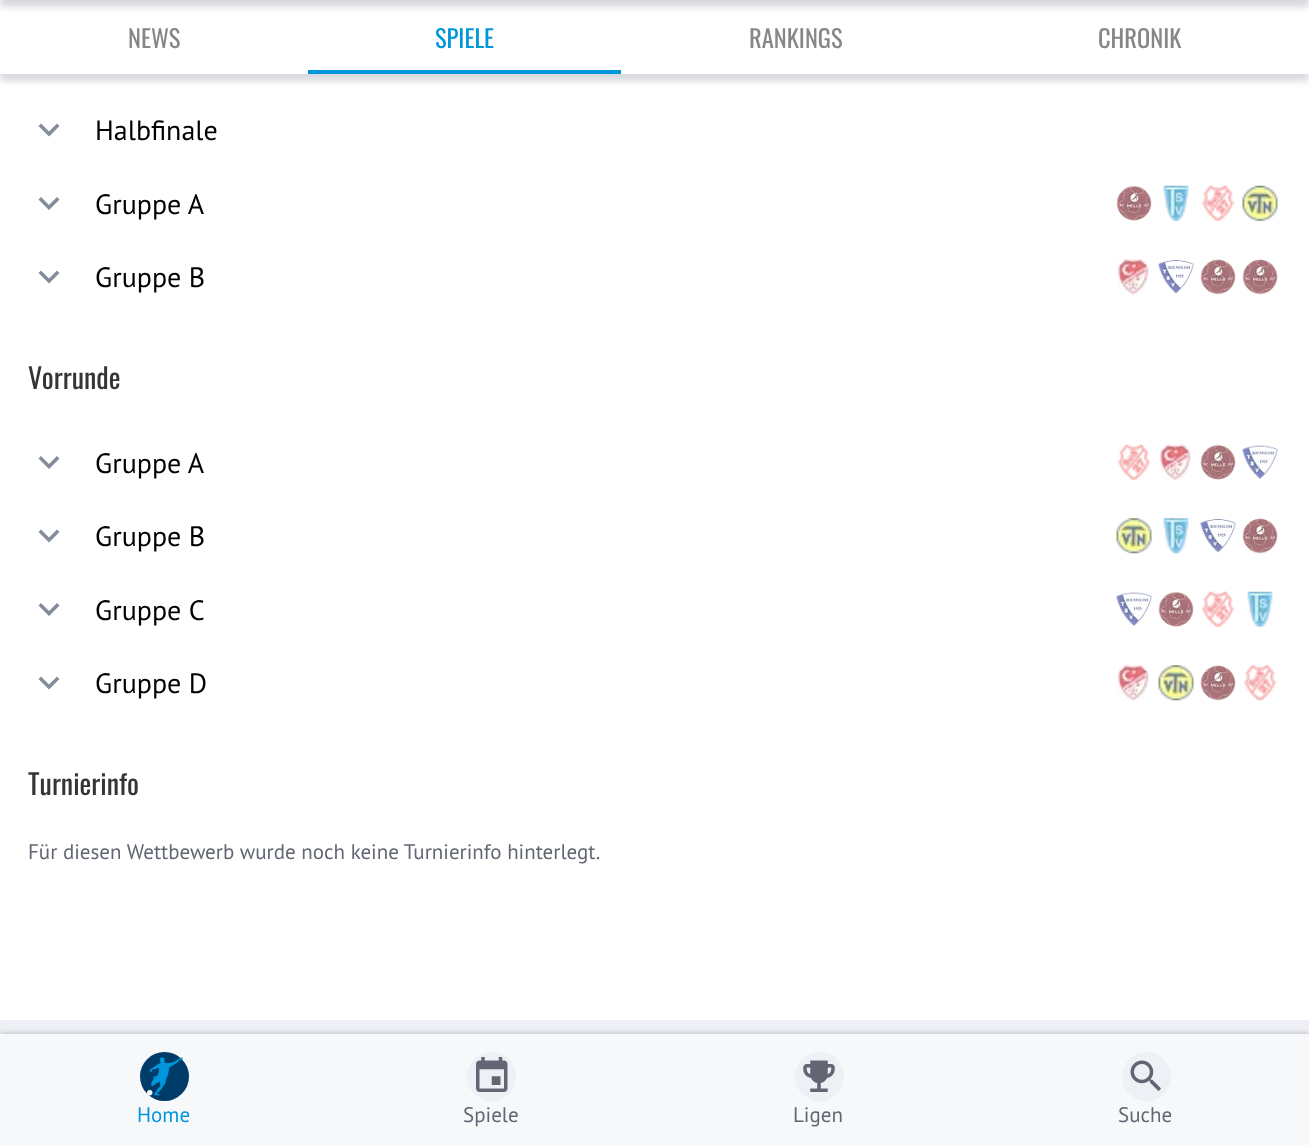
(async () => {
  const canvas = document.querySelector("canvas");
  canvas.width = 1309;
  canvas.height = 1145;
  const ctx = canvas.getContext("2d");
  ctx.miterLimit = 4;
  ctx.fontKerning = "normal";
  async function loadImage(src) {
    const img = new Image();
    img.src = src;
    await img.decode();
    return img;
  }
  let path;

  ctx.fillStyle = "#eef0f5";
  ctx.fillRect(0, 0, 1309, 1145);
  ctx.fillStyle = "#ffffff";
  ctx.fillRect(0, 74, 1309, 946);
  ctx.fillStyle = "rgba(188, 190, 198, 0.6)";
  ctx.filter = "blur(3.5px)";
  ctx.beginPath();
  ctx.rect(0, 7, 1309, 74);
  ctx.fill();
  ctx.filter = "none";
  ctx.fillStyle = "#ffffff";
  ctx.fillRect(0, 0, 1309, 74);
  ctx.fillStyle = "rgba(188, 190, 198, 0.6)";
  ctx.filter = "blur(3.5px)";
  ctx.beginPath();
  ctx.rect(0, -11, 1309, 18);
  ctx.fill();
  ctx.filter = "none";
  ctx.fillStyle = "#0096db";
  ctx.fillRect(308, 70, 313, 4);
  ctx.fillStyle = "#848c9c";
  path = new Path2D("M41 123.5L49 131.5L57 123.5L59.5 126L49 136.5L38.5 126Z");
  ctx.fill(path);
  path = new Path2D("M41 197L49 205L57 197L59.5 199.5L49 210L38.5 199.5Z");
  ctx.fill(path);
  ctx.drawImage(await loadImage("img/1.png"), 1116, 185, 36, 36);
  ctx.drawImage(await loadImage("img/2.png"), 1163, 185, 26, 36);
  ctx.drawImage(await loadImage("img/3.png"), 1202, 185, 33, 36);
  ctx.drawImage(await loadImage("img/4.png"), 1242, 185, 36, 36);
  path = new Path2D("M41 270.5L49 278.5L57 270.5L59.5 273L49 283.5L38.5 273Z");
  ctx.fill(path);
  ctx.drawImage(await loadImage("img/5.png"), 1118, 259, 31, 36);
  ctx.drawImage(await loadImage("img/6.png"), 1158, 260, 36, 34);
  ctx.drawImage(await loadImage("img/7.png"), 1200, 259, 36, 36);
  ctx.drawImage(await loadImage("img/8.png"), 1242, 259, 36, 36);
  path = new Path2D("M41 456L49 464L57 456L59.5 458.5L49 469L38.5 458.5Z");
  ctx.fill(path);
  ctx.drawImage(await loadImage("img/3.png"), 1118, 444, 33, 36);
  ctx.drawImage(await loadImage("img/9.png"), 1160, 444, 31, 36);
  ctx.drawImage(await loadImage("img/1.png"), 1200, 444, 36, 36);
  ctx.drawImage(await loadImage("img/10.png"), 1242, 445, 36, 34);
  path = new Path2D("M41 529.5L49 537.5L57 529.5L59.5 532L49 542.5L38.5 532Z");
  ctx.fill(path);
  ctx.drawImage(await loadImage("img/11.png"), 1116, 518, 36, 36);
  ctx.drawImage(await loadImage("img/12.png"), 1163, 518, 26, 36);
  ctx.drawImage(await loadImage("img/13.png"), 1200, 519, 36, 34);
  ctx.drawImage(await loadImage("img/8.png"), 1242, 518, 36, 36);
  path = new Path2D("M41 603L49 611L57 603L59.5 605.5L49 616L38.5 605.5Z");
  ctx.fill(path);
  ctx.drawImage(await loadImage("img/14.png"), 1116, 592, 36, 34);
  ctx.drawImage(await loadImage("img/15.png"), 1158, 591, 36, 36);
  ctx.drawImage(await loadImage("img/3.png"), 1202, 591, 33, 36);
  ctx.drawImage(await loadImage("img/2.png"), 1247, 591, 26, 36);
  path = new Path2D("M41 676.5L49 684.5L57 676.5L59.5 679L49 689.5L38.5 679Z");
  ctx.fill(path);
  ctx.drawImage(await loadImage("img/5.png"), 1118, 665, 31, 36);
  ctx.drawImage(await loadImage("img/16.png"), 1158, 665, 36, 36);
  ctx.drawImage(await loadImage("img/7.png"), 1200, 665, 36, 36);
  ctx.drawImage(await loadImage("img/17.png"), 1244, 665, 33, 36);
  ctx.fillStyle = "#bcbec6";
  ctx.filter = "blur(2.5px)";
  ctx.beginPath();
  ctx.rect(0, 1033, 1309, 112);
  ctx.fill();
  ctx.filter = "none";
  ctx.fillStyle = "#f7f8fa";
  ctx.fillRect(0, 1034, 1309, 111);
  ctx.fillStyle = "#003c69";
  ctx.beginPath();
  ctx.arc(164.5, 1076.5, 24.5, 0, Math.PI * 2);
  ctx.fill();
  ctx.drawImage(await loadImage("img/18.png"), 147, 1057, 37, 39);
  ctx.fillStyle = "#eef0f5";
  ctx.beginPath();
  ctx.arc(491.5, 1076.5, 24.5, 0, Math.PI * 2);
  ctx.fill();
  ctx.drawImage(await loadImage("img/19.png"), 476, 1057, 32, 35);
  ctx.beginPath();
  ctx.arc(819.5, 1076.5, 24.5, 0, Math.PI * 2);
  ctx.fill();
  ctx.drawImage(await loadImage("img/20.png"), 803, 1060, 32, 32);
  ctx.beginPath();
  ctx.arc(1146.5, 1076.5, 24.5, 0, Math.PI * 2);
  ctx.fill();
  ctx.drawImage(await loadImage("img/21.png"), 1130, 1060, 31, 31);
  ctx.font = "24.5px Oswald";
  ctx.fillStyle = "#858686";
  ctx.fillText("NEWS", 128, 48);
  ctx.fillStyle = "#0096db";
  ctx.fillText("SPIELE", 435, 48);
  ctx.fillStyle = "#858686";
  ctx.fillText("RANKINGS", 749, 48);
  ctx.fillText("CHRONIK", 1098, 48);
  ctx.font = "28px PT Sans";
  ctx.fillStyle = "#000000";
  for (const [text, x, y] of [
    ["Halbfinale", 95, 140],
    ["Gruppe A", 95, 214],
    ["Gruppe B", 95, 287],
  ]) {
    ctx.fillText(text, x, y);
  }
  ctx.font = "28px Oswald";
  ctx.fillStyle = "#343536";
  ctx.fillText("Vorrunde", 28, 389);
  ctx.font = "28px PT Sans";
  ctx.fillStyle = "#000000";
  for (const [text, x, y] of [
    ["Gruppe A", 95, 473],
    ["Gruppe B", 95, 546],
    ["Gruppe C", 95, 620],
    ["Gruppe D", 95, 693],
  ]) {
    ctx.fillText(text, x, y);
  }
  ctx.font = "28px Oswald";
  ctx.fillStyle = "#343536";
  ctx.fillText("Turnierinfo", 28, 795);
  ctx.font = "21px PT Sans";
  ctx.fillStyle = "#616672";
  ctx.fillText("Für diesen Wettbewerb wurde noch keine Turnierinfo hinterlegt.", 28, 859);
  ctx.fillStyle = "#0096db";
  ctx.fillText("Home", 137, 1122);
  ctx.fillStyle = "#616672";
  for (const [text, x, y] of [
    ["Spiele", 463, 1122],
    ["Ligen", 793, 1122],
    ["Suche", 1118, 1122],
  ]) {
    ctx.fillText(text, x, y);
  }
})();
